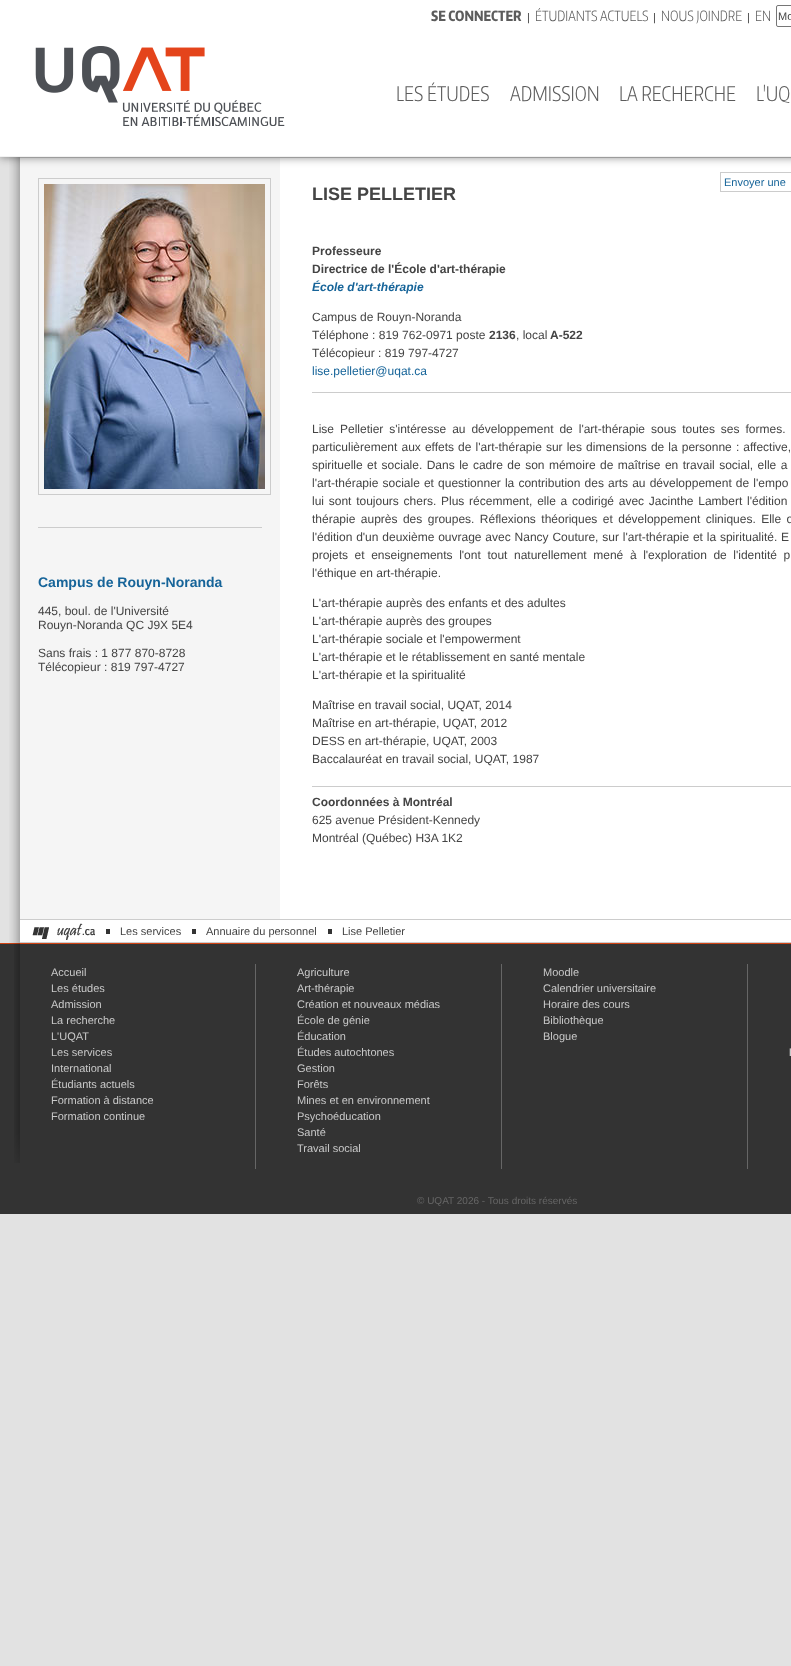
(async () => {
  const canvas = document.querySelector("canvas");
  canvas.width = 791;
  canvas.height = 1666;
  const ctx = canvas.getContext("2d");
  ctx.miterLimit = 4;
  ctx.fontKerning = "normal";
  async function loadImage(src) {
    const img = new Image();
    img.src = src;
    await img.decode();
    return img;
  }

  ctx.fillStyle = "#e2e2e2";
  ctx.fillRect(0, 0, 791, 1666);
  ctx.drawImage(await loadImage("img/2.png"), 9, 157, 782, 762);
  ctx.fillStyle = "#f5f5f5";
  ctx.fillRect(20, 158, 260, 761);
  ctx.fillStyle = "#cccccc";
  ctx.fillRect(20, 157, 771, 1);
  ctx.strokeStyle = "#cccccc";
  ctx.strokeRect(720.5, 172.5, 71, 19);
  ctx.fillStyle = "rgba(0, 0, 0, 0.5)";
  ctx.filter = "blur(5px)";
  ctx.beginPath();
  ctx.rect(0, 0, 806, 157);
  ctx.fill();
  ctx.filter = "none";
  ctx.fillStyle = "#ffffff";
  ctx.fillRect(0, 0, 791, 156);
  ctx.fillStyle = "#f2f2f2";
  ctx.fillRect(0, 156, 791, 1);
  ctx.beginPath();
  ctx.roundRect(776.5, 5.5, 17, 21, 1.5);
  ctx.strokeStyle = "#767676";
  ctx.stroke();
  ctx.drawImage(await loadImage("img/1.png"), 35, 46, 250, 80);
  ctx.strokeStyle = "#cccccc";
  ctx.strokeRect(38.5, 178.5, 232, 316);
  ctx.drawImage(await loadImage("img/3.png"), 44, 184, 221, 305);
  for (const [x, y, w, h, color] of [
    [38, 527, 224, 1, "#cccccc"],
    [312, 392, 479, 1, "#cccccc"],
    [312, 786, 479, 1, "#cccccc"],
  ]) {
    ctx.fillStyle = color;
    ctx.fillRect(x, y, w, h);
  }
  ctx.drawImage(await loadImage("img/4.png"), 9, 919, 782, 24);
  for (const [x, y, w, h, color] of [
    [20, 919, 771, 1, "#cccccc"],
    [20, 942, 771, 1, "#cccccc"],
    [106, 929, 4, 5, "#333333"],
  ]) {
    ctx.fillStyle = color;
    ctx.fillRect(x, y, w, h);
  }
  ctx.drawImage(await loadImage("img/5.png"), 32, 923, 63, 17);
  for (const [x, y, w, h, color] of [
    [192, 929, 4, 5, "#333333"],
    [328, 929, 4, 5, "#333333"],
    [0, 943, 791, 1, "#d14414"],
  ]) {
    ctx.fillStyle = color;
    ctx.fillRect(x, y, w, h);
  }
  ctx.drawImage(await loadImage("img/6.png"), 9, 943, 11, 1);
  ctx.fillStyle = "#333333";
  ctx.fillRect(0, 944, 791, 270);
  ctx.drawImage(await loadImage("img/7.png"), 14, 944, 6, 219);
  for (const [x, y, w, h, color] of [
    [255, 964, 1, 205, "#666666"],
    [501, 964, 1, 205, "#666666"],
    [747, 964, 1, 205, "#666666"],
  ]) {
    ctx.fillStyle = color;
    ctx.fillRect(x, y, w, h);
  }
  ctx.font = "800 14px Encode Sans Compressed";
  ctx.fillStyle = "#5c5c5c";
  ctx.fillText("SE CONNECTER", 431, 21);
  ctx.font = "11px Liberation Sans";
  ctx.fillStyle = "#444444";
  ctx.fillText("|", 527, 21);
  ctx.font = "300 14px Encode Sans Compressed";
  ctx.fillStyle = "#5c5c5c";
  ctx.fillText("ÉTUDIANTS ACTUELS", 535, 21);
  ctx.font = "11px Liberation Sans";
  ctx.fillStyle = "#444444";
  ctx.fillText("|", 653, 21);
  ctx.font = "300 14px Encode Sans Compressed";
  ctx.fillStyle = "#5c5c5c";
  ctx.fillText("NOUS JOINDRE", 661, 21);
  ctx.font = "11px Liberation Sans";
  ctx.fillStyle = "#444444";
  ctx.fillText("|", 747, 21);
  ctx.font = "300 14px Encode Sans Compressed";
  ctx.fillStyle = "#5c5c5c";
  ctx.fillText("EN", 755, 21);
  ctx.font = "11px Liberation Sans";
  ctx.fillStyle = "#444444";
  ctx.fillText("Mo", 778, 20);
  ctx.font = "300 20px Encode Sans Compressed";
  ctx.fillStyle = "#5c5c5c";
  for (const [text, x, y] of [
    ["LES ÉTUDES", 396, 101],
    ["ADMISSION", 510, 101],
    ["LA RECHERCHE", 619, 101],
    ["L'UQ", 756, 101],
  ]) {
    ctx.fillText(text, x, y);
  }
  ctx.font = "bold 14px Liberation Sans";
  ctx.fillStyle = "#166499";
  ctx.fillText("Campus de Rouyn-Noranda", 38, 587);
  ctx.font = "12px Liberation Sans";
  ctx.fillStyle = "#444444";
  for (const [text, x, y] of [
    ["445, boul. de l'Université", 38, 615],
    ["Rouyn-Noranda QC J9X 5E4", 38, 629],
    ["Sans frais : 1 877 870-8728", 38, 657],
    ["Télécopieur : 819 797-4727", 38, 671],
  ]) {
    ctx.fillText(text, x, y);
  }
  ctx.font = "11px Liberation Sans";
  ctx.fillStyle = "#166499";
  ctx.fillText("Envoyer une", 724, 186);
  ctx.font = "bold 18px Liberation Sans";
  ctx.fillStyle = "#444444";
  ctx.fillText("LISE PELLETIER", 312, 200);
  ctx.font = "bold 12px Liberation Sans";
  ctx.fillText("Professeure", 312, 255);
  ctx.fillText("Directrice de l'École d'art-thérapie", 312, 273);
  ctx.font = "italic bold 12px Liberation Sans";
  ctx.fillStyle = "#166499";
  ctx.fillText("École d'art-thérapie", 312, 291);
  ctx.font = "12px Liberation Sans";
  ctx.fillStyle = "#444444";
  ctx.fillText("Campus de Rouyn-Noranda", 312, 321);
  ctx.fillText("Téléphone : 819 762-0971 poste", 312, 339);
  ctx.font = "bold 12px Liberation Sans";
  ctx.fillText("2136", 489, 339);
  ctx.font = "12px Liberation Sans";
  ctx.fillText(", local", 516, 339);
  ctx.font = "bold 12px Liberation Sans";
  ctx.fillText("A-522", 550, 339);
  ctx.font = "12px Liberation Sans";
  ctx.fillText("Télécopieur : 819 797-4727", 312, 357);
  ctx.fillStyle = "#166499";
  ctx.fillText("lise.pelletier@uqat.ca", 312, 375);
  ctx.wordSpacing = "2.6px";
  ctx.fillStyle = "#444444";
  ctx.fillText("Lise Pelletier s'intéresse au développement de l'art-thérapie sous toutes ses formes.", 312, 433);
  ctx.wordSpacing = "0.75px";
  ctx.fillText("particulièrement aux effets de l'art-thérapie sur les dimensions de la personne : affective,", 312, 451);
  ctx.wordSpacing = "1.1px";
  ctx.fillText("spirituelle et sociale. Dans le cadre de son mémoire de maîtrise en travail social, elle a", 312, 469);
  ctx.wordSpacing = "0.8px";
  ctx.fillText("l'art-thérapie sociale et questionner la contribution des arts au développement de l'empo", 312, 487);
  ctx.wordSpacing = "1.4px";
  ctx.fillText("lui sont toujours chers. Plus récemment, elle a codirigé avec Jacinthe Lambert l'édition", 312, 505);
  ctx.wordSpacing = "2.1px";
  ctx.fillText("thérapie auprès des groupes. Réflexions théoriques et développement cliniques. Elle o", 312, 523);
  ctx.wordSpacing = "0.5px";
  ctx.fillText("l'édition d'un deuxième ouvrage avec Nancy Couture, sur l'art-thérapie et la spiritualité. E", 312, 541);
  ctx.wordSpacing = "3.25px";
  ctx.fillText("projets et enseignements l'ont tout naturellement mené à l'exploration de l'identité p", 312, 559);
  ctx.wordSpacing = "0px";
  for (const [text, x, y] of [
    ["l'éthique en art-thérapie.", 312, 577],
    ["L'art-thérapie auprès des enfants et des adultes", 312, 607],
    ["L'art-thérapie auprès des groupes", 312, 625],
    ["L'art-thérapie sociale et l'empowerment", 312, 643],
    ["L'art-thérapie et le rétablissement en santé mentale", 312, 661],
    ["L'art-thérapie et la spiritualité", 312, 679],
    ["Maîtrise en travail social, UQAT, 2014", 312, 709],
    ["Maîtrise en art-thérapie, UQAT, 2012", 312, 727],
    ["DESS en art-thérapie, UQAT, 2003", 312, 745],
    ["Baccalauréat en travail social, UQAT, 1987", 312, 763],
  ]) {
    ctx.fillText(text, x, y);
  }
  ctx.font = "bold 12px Liberation Sans";
  ctx.fillText("Coordonnées à Montréal", 312, 806);
  ctx.font = "12px Liberation Sans";
  ctx.fillText("625 avenue Président-Kennedy", 312, 824);
  ctx.fillText("Montréal (Québec) H3A 1K2", 312, 842);
  ctx.font = "11px Liberation Sans";
  for (const [text, x, y] of [
    ["Les services", 120, 935],
    ["Annuaire du personnel", 206, 935],
    ["Lise Pelletier", 342, 935],
  ]) {
    ctx.fillText(text, x, y);
  }
  ctx.fillStyle = "#c9c9c9";
  for (const [text, x, y] of [
    ["Accueil", 51, 976],
    ["Les études", 51, 992],
    ["Admission", 51, 1008],
    ["La recherche", 51, 1024],
    ["L'UQAT", 51, 1040],
    ["Les services", 51, 1056],
    ["International", 51, 1072],
    ["Étudiants actuels", 51, 1088],
    ["Formation à distance", 51, 1104],
    ["Formation continue", 51, 1120],
    ["Agriculture", 297, 976],
    ["Art-thérapie", 297, 992],
    ["Création et nouveaux médias", 297, 1008],
    ["École de génie", 297, 1024],
    ["Éducation", 297, 1040],
    ["Études autochtones", 297, 1056],
    ["Gestion", 297, 1072],
    ["Forêts", 297, 1088],
    ["Mines et en environnement", 297, 1104],
    ["Psychoéducation", 297, 1120],
    ["Santé", 297, 1136],
    ["Travail social", 297, 1152],
    ["Moodle", 543, 976],
    ["Calendrier universitaire", 543, 992],
    ["Horaire des cours", 543, 1008],
    ["Bibliothèque", 543, 1024],
    ["Blogue", 543, 1040],
  ]) {
    ctx.fillText(text, x, y);
  }
  ctx.font = "bold 11px Liberation Sans";
  ctx.fillText("I", 789, 1056);
  ctx.font = "10px Liberation Sans";
  ctx.fillStyle = "#666666";
  ctx.fillText("© UQAT 2026 - Tous droits réservés", 417, 1204);
})();
